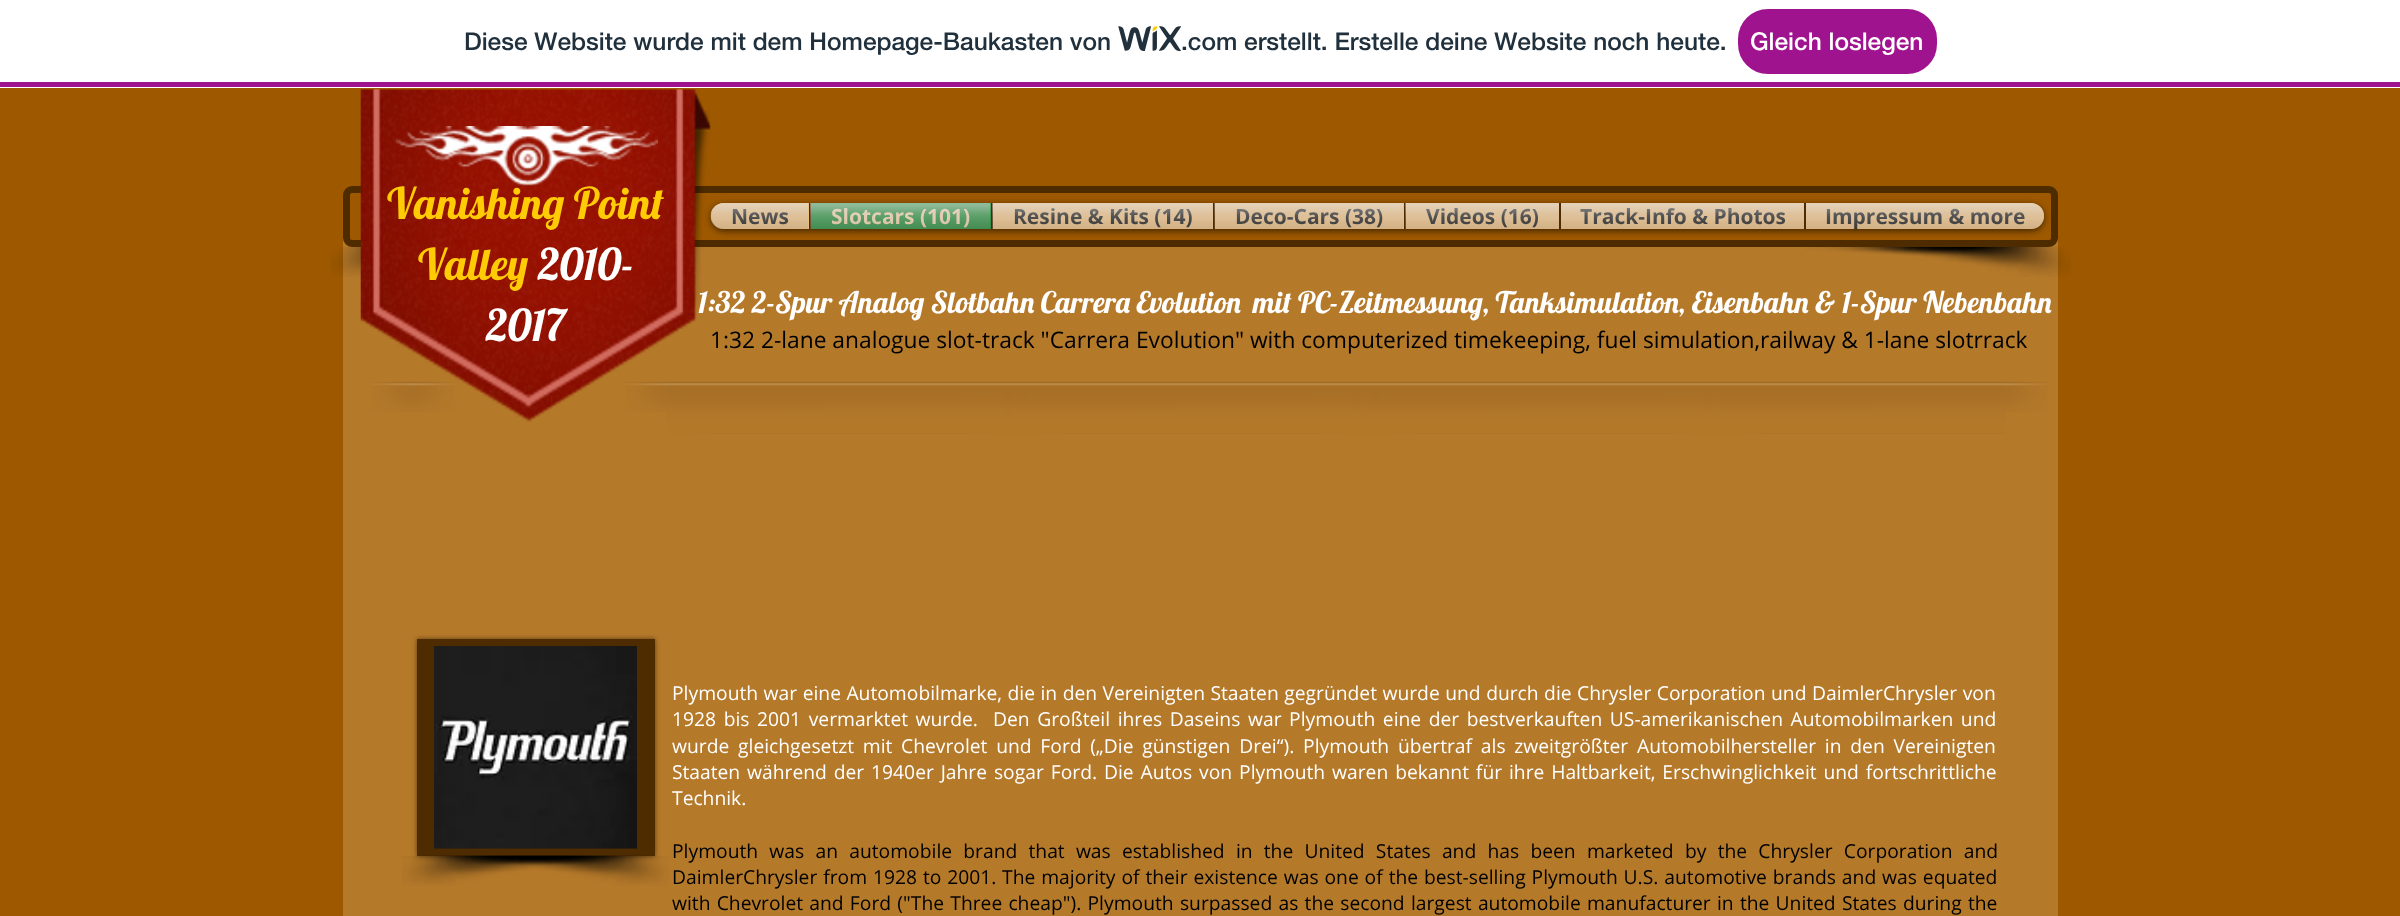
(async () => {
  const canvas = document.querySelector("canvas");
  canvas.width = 2400;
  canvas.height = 916;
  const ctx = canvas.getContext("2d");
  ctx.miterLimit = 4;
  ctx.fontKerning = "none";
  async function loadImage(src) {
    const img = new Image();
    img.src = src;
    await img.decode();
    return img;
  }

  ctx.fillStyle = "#ffffff";
  ctx.fillRect(0, 0, 2400, 916);
  ctx.fillStyle = "#a0138e";
  ctx.fillRect(0, 82, 2400, 5);
  ctx.drawImage(await loadImage("img/1.png"), 1118, 26, 63, 26);
  ctx.beginPath();
  ctx.roundRect(1739, 10, 197, 63, 29);
  ctx.fill();
  ctx.strokeStyle = "#a0138e";
  ctx.lineWidth = 2;
  ctx.stroke();
  ctx.fillStyle = "#9e5900";
  ctx.fillRect(0, 88, 2400, 828);
  ctx.fillStyle = "#b5792a";
  ctx.fillRect(343, 194, 1715, 722);
  ctx.drawImage(await loadImage("img/20.png"), 330, 246, 31, 31);
  ctx.drawImage(await loadImage("img/21.png"), 1805, 246, 266, 31);
  ctx.fillStyle = "#9e5900";
  ctx.beginPath();
  ctx.roundRect(346.5, 189.5, 1708, 54, 5.5);
  ctx.fill();
  ctx.strokeStyle = "#4f2c00";
  ctx.lineWidth = 7;
  ctx.stroke();
  ctx.drawImage(await loadImage("img/3.png"), 360, 89, 351, 333);
  ctx.drawImage(await loadImage("img/2.png"), 395, 126, 263, 60);
  ctx.fillStyle = "rgba(0, 0, 0, 0.6)";
  ctx.filter = "blur(3.5px)";
  ctx.beginPath();
  ctx.roundRect(711, 205, 1333, 26, 13);
  ctx.fill();
  ctx.filter = "none";
  ctx.drawImage(await loadImage("img/4.png"), 710, 203, 1334, 26);
  ctx.drawImage(await loadImage("img/5.png"), 711, 203, 1333, 26);
  ctx.fillStyle = "#f3be79";
  ctx.beginPath();
  ctx.roundRect(711, 203, 98, 26, [13, 0, 0, 13]);
  ctx.fill();
  for (const [x, y, w, h, color] of [
    [811, 203, 180, 26, "#108529"],
    [809, 203, 2, 26, "#4f2c00"],
    [993, 203, 220, 26, "#f3be79"],
    [991, 203, 2, 26, "#4f2c00"],
    [1215, 203, 189, 26, "#f3be79"],
    [1213, 203, 2, 26, "#4f2c00"],
    [1406, 203, 153, 26, "#f3be79"],
    [1404, 203, 2, 26, "#4f2c00"],
    [1561, 203, 243, 26, "#f3be79"],
    [1559, 203, 2, 26, "#4f2c00"],
  ]) {
    ctx.fillStyle = color;
    ctx.fillRect(x, y, w, h);
  }
  ctx.fillStyle = "#f3be79";
  ctx.beginPath();
  ctx.roundRect(1804, 203, 240, 26, [0, 13, 13, 0]);
  ctx.fill();
  ctx.fillStyle = "#4f2c00";
  ctx.fillRect(1804, 203, 2, 26);
  ctx.drawImage(await loadImage("img/22.png"), 371, 381, 42, 31);
  ctx.drawImage(await loadImage("img/23.png"), 413, 381, 42, 31);
  ctx.drawImage(await loadImage("img/25.png"), 666, 381, 1340, 53);
  ctx.drawImage(await loadImage("img/24.png"), 625, 381, 42, 31);
  ctx.drawImage(await loadImage("img/26.png"), 2005, 381, 42, 31);
  ctx.fillStyle = "rgba(0, 0, 0, 0.5)";
  ctx.filter = "blur(2.5px)";
  ctx.beginPath();
  ctx.rect(417, 639, 238, 217);
  ctx.fill();
  ctx.filter = "none";
  ctx.fillStyle = "#4f2c00";
  ctx.fillRect(417, 639, 238, 217);
  ctx.drawImage(await loadImage("img/27.png"), 434, 646, 203, 203);
  ctx.drawImage(await loadImage("img/29.png"), 402, 855, 268, 31);
  ctx.drawImage(await loadImage("img/28.png"), 401, 855, 268, 31);
  ctx.font = "500 24.5px 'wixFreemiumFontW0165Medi'";
  ctx.fillStyle = "#20303c";
  ctx.fillText("Diese Website wurde mit dem Homepage-Baukasten von", 464, 50);
  ctx.fillText(".com erstellt. Erstelle deine Website noch heute.", 1181, 50);
  ctx.fillStyle = "#ffffff";
  ctx.fillText("Gleich loslegen", 1750, 50);
  ctx.font = "43.75px Lobster";
  ctx.fillStyle = "#ffcb05";
  ctx.fillText("Vanishing Point", 387, 219);
  ctx.fillText("Valley", 418, 280);
  ctx.fillStyle = "#ffffff";
  ctx.fillText("2010-", 538, 280);
  ctx.fillText("2017", 486, 341);
  ctx.font = "bold 21px Open Sans";
  ctx.fillStyle = "#000000";
  ctx.fillText("News", 731, 224);
  ctx.drawImage(await loadImage("img/6.png"), 710, 203, 99, 26);
  ctx.drawImage(await loadImage("img/7.png"), 711, 203, 98, 26);
  ctx.fillStyle = "#f9d5a6";
  ctx.fillText("Slotcars (101)", 831, 224);
  ctx.drawImage(await loadImage("img/8.png"), 810, 203, 181, 26);
  ctx.drawImage(await loadImage("img/9.png"), 810, 203, 181, 26);
  ctx.fillStyle = "#000000";
  ctx.fillText("Resine & Kits (14)", 1013, 224);
  ctx.drawImage(await loadImage("img/10.png"), 992, 203, 221, 26);
  ctx.drawImage(await loadImage("img/11.png"), 992, 203, 221, 26);
  ctx.fillText("Deco-Cars (38)", 1235, 224);
  ctx.drawImage(await loadImage("img/12.png"), 1214, 203, 190, 26);
  ctx.drawImage(await loadImage("img/13.png"), 1214, 203, 190, 26);
  ctx.fillText("Videos (16)", 1426, 224);
  ctx.drawImage(await loadImage("img/14.png"), 1405, 203, 154, 26);
  ctx.drawImage(await loadImage("img/15.png"), 1405, 203, 154, 26);
  ctx.fillText("Track-Info & Photos", 1580, 224);
  ctx.drawImage(await loadImage("img/16.png"), 1561, 203, 243, 26);
  ctx.drawImage(await loadImage("img/17.png"), 1561, 203, 243, 26);
  ctx.save();
  ctx.beginPath();
  ctx.roundRect(711, 203, 1333, 26, 13);
  ctx.clip();
  ctx.fillText("Impressum & more", 1825, 224);
  ctx.restore();
  ctx.drawImage(await loadImage("img/18.png"), 1806, 203, 238, 26);
  ctx.drawImage(await loadImage("img/19.png"), 1806, 203, 238, 26);
  ctx.font = "29.75px Lobster";
  ctx.fillStyle = "#ffffff";
  ctx.fillText("1:32 2-Spur Analog Slotbahn Carrera Evolution", 698, 313);
  ctx.fillText("mit PC-Zeitmessung, Tanksimulation, Eisenbahn & 1-Spur Nebenbahn", 1253, 313);
  ctx.font = "22.75px Open Sans";
  ctx.fillStyle = "#000000";
  ctx.fillText("1:32 2-lane analogue slot-track \"Carrera Evolution\" with computerized timekeeping, fuel simulation,railway & 1-lane slotrrack", 710, 348);
  ctx.wordSpacing = "0.5px";
  ctx.font = "19.25px Open Sans";
  ctx.fillStyle = "#ffffff";
  ctx.fillText("Plymouth war eine Automobilmarke, die in den Vereinigten Staaten gegründet wurde und durch die Chrysler Corporation und DaimlerChrysler von", 672, 700);
  ctx.wordSpacing = "2.6px";
  ctx.fillText("1928 bis 2001 vermarktet wurde.", 672, 726);
  ctx.fillText("Den Großteil ihres Daseins war Plymouth eine der bestverkauften US-amerikanischen Automobilmarken und", 993, 726);
  ctx.wordSpacing = "3.75px";
  ctx.fillText("wurde gleichgesetzt mit Chevrolet und Ford („Die günstigen Drei“). Plymouth übertraf als zweitgrößter Automobilhersteller in den Vereinigten", 672, 753);
  ctx.wordSpacing = "1.9px";
  ctx.fillText("Staaten während der 1940er Jahre sogar Ford. Die Autos von Plymouth waren bekannt für ihre Haltbarkeit, Erschwinglichkeit und fortschrittliche", 672, 779);
  ctx.wordSpacing = "0px";
  ctx.fillText("Technik.", 672, 805);
  ctx.wordSpacing = "6.25px";
  ctx.fillStyle = "#000000";
  ctx.fillText("Plymouth was an automobile brand that was established in the United States and has been marketed by the Chrysler Corporation and", 672, 858);
  ctx.wordSpacing = "0.9px";
  ctx.fillText("DaimlerChrysler from 1928 to 2001.", 672, 884);
  ctx.fillText("The majority of their existence was one of the best-selling Plymouth U.S. automotive brands and was equated", 1002, 884);
  ctx.wordSpacing = "1.25px";
  ctx.fillText("with Chevrolet and Ford (\"The Three cheap\"). Plymouth surpassed as the second largest automobile manufacturer in the United States during the", 672, 910);
})();
